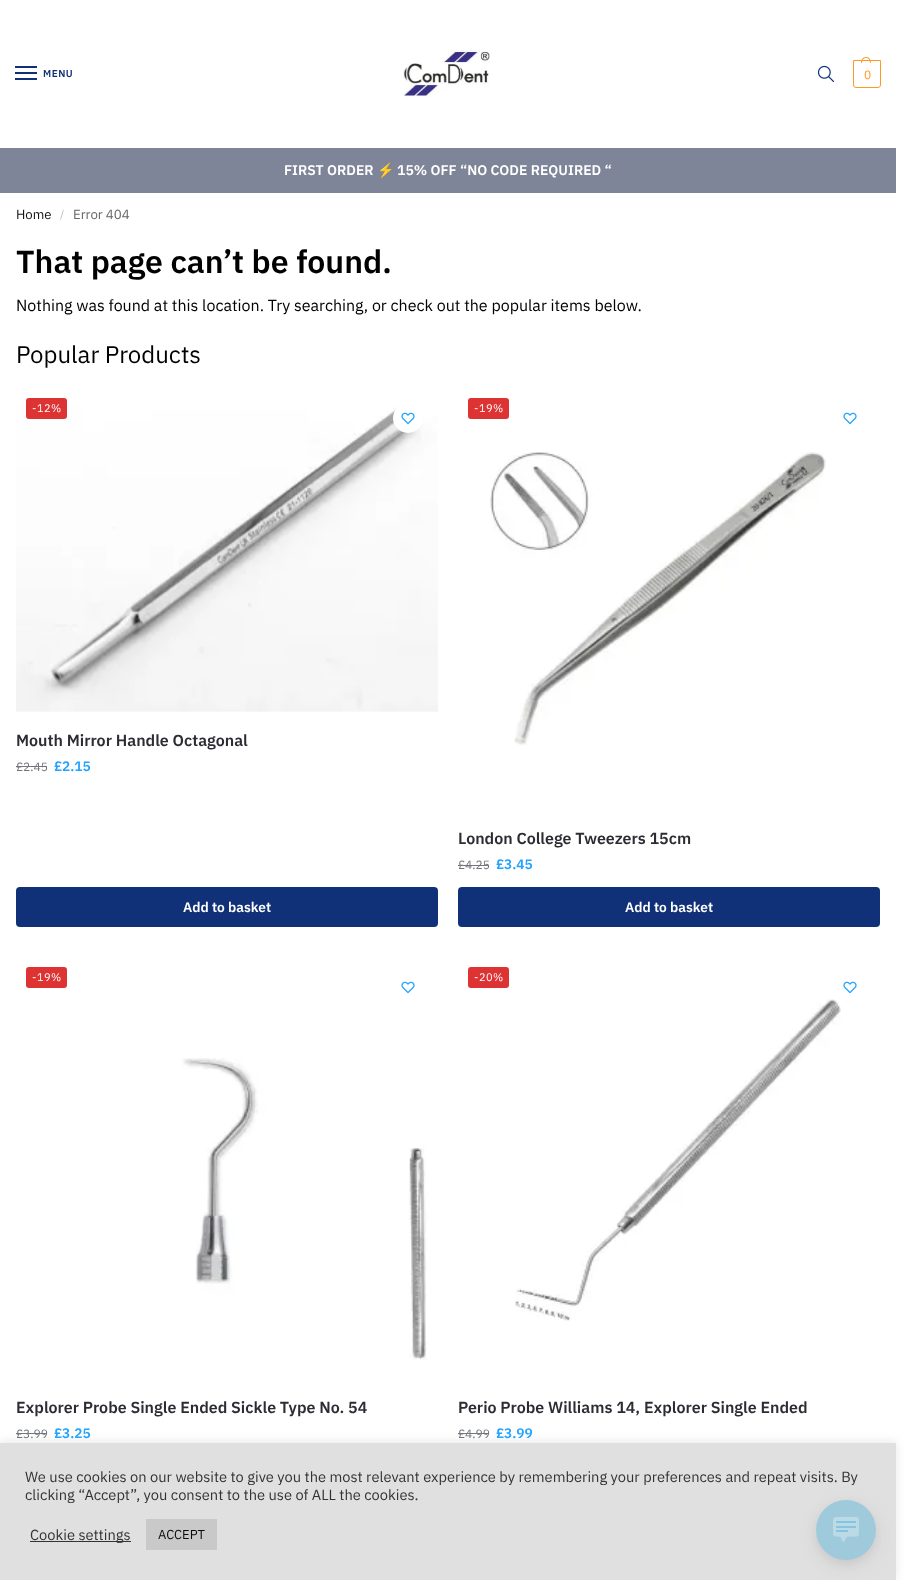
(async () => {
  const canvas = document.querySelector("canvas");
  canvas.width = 911;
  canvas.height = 1580;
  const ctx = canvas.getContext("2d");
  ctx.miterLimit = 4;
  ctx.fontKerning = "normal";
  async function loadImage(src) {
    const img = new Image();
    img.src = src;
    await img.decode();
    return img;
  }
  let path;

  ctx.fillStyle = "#ffffff";
  ctx.fillRect(0, 0, 911, 1580);
  for (const [x, y, w, h, color] of [
    [15, 66, 22, 2, "#103178"],
    [15, 72, 22, 2, "#103178"],
    [15, 78, 22, 2, "#103178"],
  ]) {
    ctx.fillStyle = color;
    ctx.fillRect(x, y, w, h);
  }
  ctx.drawImage(await loadImage("img/1.png"), 403, 50, 87, 48);
  ctx.drawImage(await loadImage("img/2.png"), 817, 65, 18, 18);
  ctx.beginPath();
  ctx.roundRect(853.5, 60.5, 27, 27, [0, 0, 2.5, 2.5]);
  ctx.strokeStyle = "#ff9923";
  ctx.stroke();
  ctx.fillStyle = "#ff9923";
  path = new Path2D("M866 57C869.5 57 871 60 871 63H861C861 60 862.5 57 866 57ZM866 58C869 58 870 60.5 870 63H862C862 60.5 863 58 866 58Z");
  ctx.fill(path, "evenodd");
  ctx.fillStyle = "#7f8598";
  ctx.fillRect(0, 148, 896, 45);
  ctx.drawImage(await loadImage("img/3.png"), 16, 405, 422, 307);
  ctx.fillStyle = "#dd3333";
  ctx.beginPath();
  ctx.roundRect(26, 398, 41, 21, 3);
  ctx.fill();
  ctx.fillStyle = "#ffffff";
  ctx.beginPath();
  ctx.arc(408, 418, 15, 0, Math.PI * 2);
  ctx.fill();
  ctx.drawImage(await loadImage("img/4.png"), 401, 412, 14, 13);
  ctx.fillStyle = "#72767c";
  ctx.fillRect(23, 766, 24, 1);
  ctx.fillRect(16, 766, 7, 1);
  ctx.fillStyle = "#103178";
  ctx.beginPath();
  ctx.roundRect(16, 887, 422, 40, 4);
  ctx.fill();
  ctx.fillStyle = "#dd3333";
  ctx.beginPath();
  ctx.roundRect(468, 398, 41, 21, 3);
  ctx.fill();
  ctx.drawImage(await loadImage("img/5.png"), 490, 452, 336, 294);
  ctx.drawImage(await loadImage("img/4.png"), 843, 412, 14, 13);
  ctx.fillStyle = "#72767c";
  ctx.fillRect(465, 865, 24, 1);
  ctx.fillRect(458, 865, 7, 1);
  ctx.fillStyle = "#103178";
  ctx.beginPath();
  ctx.roundRect(458, 887, 422, 40, 4);
  ctx.fill();
  ctx.fillStyle = "#dd3333";
  ctx.beginPath();
  ctx.roundRect(26, 967, 41, 21, 3);
  ctx.fill();
  ctx.drawImage(await loadImage("img/6.png"), 182, 1058, 245, 302);
  ctx.drawImage(await loadImage("img/4.png"), 401, 981, 14, 13);
  ctx.fillStyle = "#72767c";
  ctx.fillRect(23, 1433, 24, 1);
  ctx.fillRect(16, 1433, 7, 1);
  ctx.fillStyle = "#dd3333";
  ctx.beginPath();
  ctx.roundRect(468, 967, 41, 21, 3);
  ctx.fill();
  ctx.drawImage(await loadImage("img/7.png"), 515, 999, 326, 322);
  ctx.drawImage(await loadImage("img/4.png"), 843, 981, 14, 13);
  ctx.fillStyle = "#72767c";
  ctx.fillRect(465, 1433, 24, 1);
  ctx.fillRect(458, 1433, 7, 1);
  ctx.fillStyle = "rgba(172, 171, 171, 0.3)";
  ctx.filter = "blur(5px)";
  ctx.beginPath();
  ctx.rect(0, 1442, 896, 137);
  ctx.fill();
  ctx.filter = "none";
  for (const [x, y, w, h, color] of [
    [0, 1443, 896, 137, "#e0e0e0"],
    [30, 1541, 101, 1, "#333333"],
    [146, 1519, 71, 31, "#c9c9c9"],
  ]) {
    ctx.fillStyle = color;
    ctx.fillRect(x, y, w, h);
  }
  ctx.fillStyle = "rgba(157, 157, 157, 0.19)";
  ctx.filter = "blur(10px)";
  ctx.beginPath();
  ctx.roundRect(816, 1506, 60, 60, 30);
  ctx.fill();
  ctx.filter = "none";
  ctx.fillStyle = "rgba(157, 157, 157, 0.2)";
  ctx.filter = "blur(4px)";
  ctx.beginPath();
  ctx.roundRect(816, 1504, 60, 60, 30);
  ctx.fill();
  ctx.filter = "none";
  ctx.fillStyle = "#9ecadc";
  ctx.beginPath();
  ctx.arc(846, 1530, 30, 0, Math.PI * 2);
  ctx.fill();
  ctx.drawImage(await loadImage("img/8.png"), 833, 1517, 26, 26);
  ctx.letterSpacing = "0.5px";
  ctx.font = "600 10px IBM Plex Sans";
  ctx.fillStyle = "#103178";
  ctx.fillText("MENU", 43, 77);
  ctx.letterSpacing = "-1px";
  ctx.font = "12px IBM Plex Sans";
  ctx.fillStyle = "#ff9923";
  ctx.fillText("0", 864, 79);
  ctx.letterSpacing = "0px";
  ctx.font = "600 14px IBM Plex Sans";
  ctx.fillStyle = "#ffffff";
  ctx.fillText("FIRST ORDER", 284, 175);
  ctx.font = "bold 14px Noto Color Emoji";
  ctx.fillText("⚡", 377, 175);
  ctx.font = "600 14px IBM Plex Sans";
  ctx.fillText("15% OFF “NO CODE REQUIRED “", 397, 175);
  ctx.font = "13.25px IBM Plex Sans";
  ctx.fillStyle = "#111111";
  ctx.fillText("Home", 16, 219);
  ctx.font = "11px IBM Plex Sans";
  ctx.fillStyle = "#c2c2c2";
  ctx.fillText("/", 60, 218);
  ctx.font = "13.25px IBM Plex Sans";
  ctx.fillStyle = "#666666";
  ctx.fillText("Error 404", 73, 219);
  ctx.font = "600 32px IBM Plex Sans";
  ctx.fillStyle = "#000000";
  ctx.fillText("That page can’t be found.", 16, 273);
  ctx.font = "16px IBM Plex Sans";
  ctx.fillText("Nothing was found at this location. Try searching, or check out the popular items below.", 16, 311);
  ctx.font = "24px IBM Plex Sans";
  ctx.fillText("Popular Products", 16, 363);
  ctx.letterSpacing = "0.5px";
  ctx.font = "11px IBM Plex Sans";
  ctx.fillStyle = "#ffffff";
  ctx.fillText("-12%", 32, 412);
  ctx.letterSpacing = "0px";
  ctx.font = "600 16px IBM Plex Sans";
  ctx.fillStyle = "#2c2d33";
  ctx.fillText("Mouth Mirror Handle Octagonal", 16, 746);
  ctx.font = "12px IBM Plex Sans";
  ctx.fillStyle = "#72767c";
  ctx.fillText("£", 16, 771);
  ctx.fillText("2.45", 23, 771);
  ctx.font = "600 13.75px IBM Plex Sans";
  ctx.fillStyle = "#24a3ff";
  ctx.fillText("£", 54, 771);
  ctx.fillText("2.15", 62, 771);
  ctx.fillStyle = "#ffffff";
  ctx.fillText("Add to basket", 183, 912);
  ctx.letterSpacing = "0.5px";
  ctx.font = "11px IBM Plex Sans";
  ctx.fillText("-19%", 474, 412);
  ctx.letterSpacing = "0px";
  ctx.font = "600 16px IBM Plex Sans";
  ctx.fillStyle = "#2c2d33";
  ctx.fillText("London College Tweezers 15cm", 458, 844);
  ctx.font = "12px IBM Plex Sans";
  ctx.fillStyle = "#72767c";
  ctx.fillText("£", 458, 869);
  ctx.fillText("4.25", 465, 869);
  ctx.font = "600 13.75px IBM Plex Sans";
  ctx.fillStyle = "#24a3ff";
  ctx.fillText("£", 496, 869);
  ctx.fillText("3.45", 504, 869);
  ctx.fillStyle = "#ffffff";
  ctx.fillText("Add to basket", 625, 912);
  ctx.letterSpacing = "0.5px";
  ctx.font = "11px IBM Plex Sans";
  ctx.fillText("-19%", 32, 981);
  ctx.letterSpacing = "0px";
  ctx.font = "600 16px IBM Plex Sans";
  ctx.fillStyle = "#2c2d33";
  ctx.fillText("Explorer Probe Single Ended Sickle Type No. 54", 16, 1413);
  ctx.font = "12px IBM Plex Sans";
  ctx.fillStyle = "#72767c";
  ctx.fillText("£", 16, 1438);
  ctx.fillText("3.99", 23, 1438);
  ctx.font = "600 13.75px IBM Plex Sans";
  ctx.fillStyle = "#24a3ff";
  ctx.fillText("£", 54, 1438);
  ctx.fillText("3.25", 62, 1438);
  ctx.letterSpacing = "0.5px";
  ctx.font = "11px IBM Plex Sans";
  ctx.fillStyle = "#ffffff";
  ctx.fillText("-20%", 474, 981);
  ctx.letterSpacing = "0px";
  ctx.font = "600 16px IBM Plex Sans";
  ctx.fillStyle = "#2c2d33";
  ctx.fillText("Perio Probe Williams 14, Explorer Single Ended", 458, 1413);
  ctx.font = "12px IBM Plex Sans";
  ctx.fillStyle = "#72767c";
  ctx.fillText("£", 458, 1438);
  ctx.fillText("4.99", 465, 1438);
  ctx.font = "600 13.75px IBM Plex Sans";
  ctx.fillStyle = "#24a3ff";
  ctx.fillText("£", 496, 1438);
  ctx.fillText("3.99", 504, 1438);
  ctx.font = "14.67px IBM Plex Sans";
  ctx.fillStyle = "#333333";
  for (const [text, x, y] of [
    ["We use cookies on our website to give you the most relevant experience by remembering your preferences and repeat visits. By", 25, 1482],
    ["clicking “Accept”, you consent to the use of ALL the cookies.", 25, 1500],
    ["Cookie settings", 30, 1540],
  ]) {
    ctx.fillText(text, x, y);
  }
  ctx.font = "13px IBM Plex Sans";
  ctx.fillStyle = "#0a0a0a";
  ctx.fillText("ACCEPT", 158, 1539);
})();
